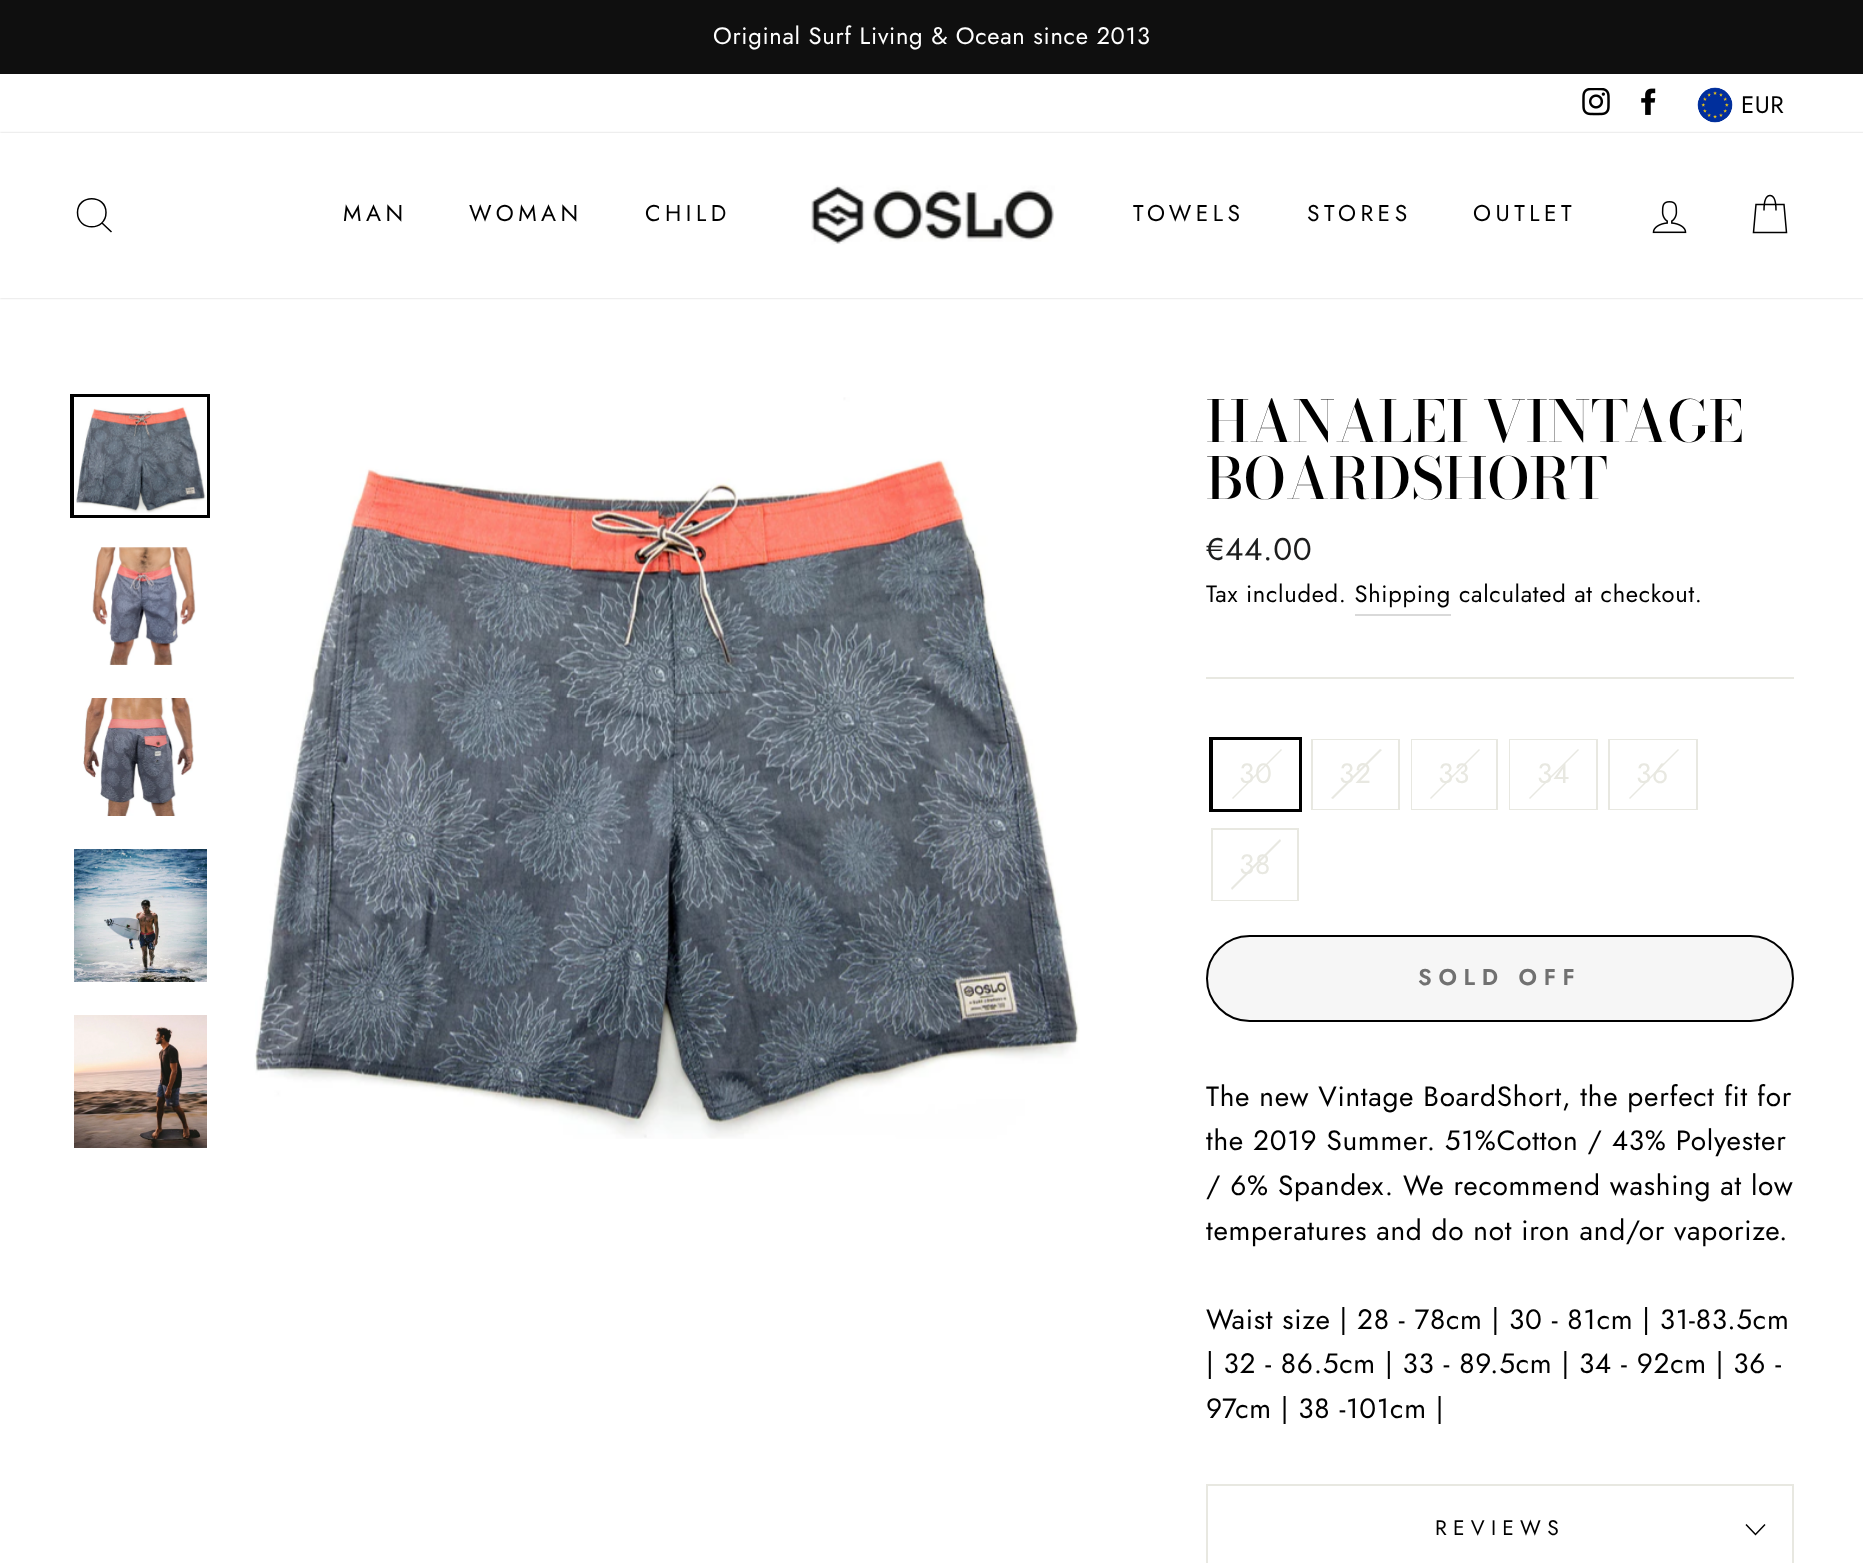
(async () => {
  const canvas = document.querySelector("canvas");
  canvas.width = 1863;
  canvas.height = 1563;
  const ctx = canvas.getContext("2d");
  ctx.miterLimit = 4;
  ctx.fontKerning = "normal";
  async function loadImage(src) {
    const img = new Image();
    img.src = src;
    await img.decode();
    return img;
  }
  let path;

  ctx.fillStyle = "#ffffff";
  ctx.fillRect(0, 0, 1863, 1563);
  ctx.fillStyle = "#0f0f0f";
  ctx.fillRect(0, 0, 1863, 74);
  ctx.drawImage(await loadImage("img/1.png"), 1582, 88, 28, 28);
  ctx.drawImage(await loadImage("img/2.png"), 1641, 88, 15, 27);
  ctx.drawImage(await loadImage("img/3.png"), 1697, 87, 36, 36);
  ctx.fillStyle = "rgba(0, 0, 0, 0.2)";
  ctx.filter = "blur(1px)";
  ctx.beginPath();
  ctx.rect(0, 133, 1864, 165);
  ctx.fill();
  ctx.filter = "none";
  ctx.fillStyle = "#ffffff";
  ctx.fillRect(0, 133, 1863, 165);
  path = new Path2D("M106 212.5C106 231.5 77.5 231.5 77.5 212.5C77.5 194 106 194 106 212.5ZM111.5 232L102 223");
  ctx.strokeStyle = "#000000";
  ctx.lineWidth = 1.5;
  ctx.stroke(path);
  ctx.drawImage(await loadImage("img/4.png"), 811, 185, 244, 60);
  ctx.drawImage(await loadImage("img/5.png"), 1652, 201, 35, 33);
  path = new Path2D("M1764 210.5C1764 198.5 1766.5 195.5 1770 195.5C1773.5 195.5 1776 198.5 1776 210.5M1756 204.5H1784L1786.5 232.5H1753.5Z");
  ctx.stroke(path);
  ctx.lineWidth = 4;
  ctx.strokeRect(72, 396, 136, 120);
  ctx.fillRect(74, 397, 133, 118);
  ctx.drawImage(await loadImage("img/6.png"), 76, 407, 130, 106);
  ctx.drawImage(await loadImage("img/7.png"), 92, 547, 104, 118);
  ctx.drawImage(await loadImage("img/8.png"), 83, 698, 111, 118);
  ctx.drawImage(await loadImage("img/9.png"), 74, 849, 133, 133);
  ctx.drawImage(await loadImage("img/10.png"), 74, 1015, 133, 133);
  ctx.drawImage(await loadImage("img/11.png"), 254, 397, 826, 742);
  ctx.fillStyle = "#d9d9d9";
  ctx.fillRect(1355, 614, 96, 2);
  ctx.fillStyle = "#e8e8e1";
  ctx.fillRect(1206, 677, 588, 2);
  ctx.strokeRect(1211, 739, 89, 71);
  ctx.fillStyle = "#ffffff";
  ctx.fillRect(1213, 740, 86, 69);
  ctx.fillStyle = "#e8e8e1";
  path = new Path2D("M1281 749L1282 750L1233 799L1232 798Z");
  ctx.fill(path);
  ctx.strokeStyle = "#e8e8e1";
  ctx.lineWidth = 2;
  ctx.strokeRect(1312, 740, 87, 69);
  ctx.fillStyle = "#ffffff";
  ctx.fillRect(1313, 740, 85, 69);
  ctx.fillStyle = "#e8e8e1";
  path = new Path2D("M1380 749L1382 750L1333 799L1331 798Z");
  ctx.fill(path);
  ctx.strokeRect(1412, 740, 85, 69);
  ctx.fillStyle = "#ffffff";
  ctx.fillRect(1412, 740, 84, 69);
  ctx.fillStyle = "#e8e8e1";
  path = new Path2D("M1479 749L1480 750L1431 799L1430 798Z");
  ctx.fill(path);
  ctx.strokeRect(1510, 740, 87, 69);
  ctx.fillStyle = "#ffffff";
  ctx.fillRect(1510, 740, 86, 69);
  ctx.fillStyle = "#e8e8e1";
  path = new Path2D("M1578 749L1579 750L1530 799L1529 798Z");
  ctx.fill(path);
  ctx.strokeRect(1609, 740, 88, 69);
  ctx.fillStyle = "#ffffff";
  ctx.fillRect(1610, 740, 86, 69);
  ctx.fillStyle = "#e8e8e1";
  path = new Path2D("M1678 749L1679 750L1630 799L1629 798Z");
  ctx.fill(path);
  ctx.strokeRect(1212, 829, 86, 71);
  ctx.fillStyle = "#ffffff";
  ctx.fillRect(1213, 899, 84, 1);
  ctx.fillStyle = "#e8e8e1";
  path = new Path2D("M1280 839L1281 841L1232 890L1231 888Z");
  ctx.fill(path);
  ctx.fillStyle = "#f6f6f6";
  ctx.beginPath();
  ctx.roundRect(1207, 936, 586, 85, 42.5);
  ctx.fill();
  ctx.strokeStyle = "#000000";
  ctx.stroke();
  for (const [x, y, w, h, color] of [
    [1206, 1484, 588, 2, "#e8e8e1"],
    [1792, 1484, 2, 79, "#e8e8e1"],
    [1206, 1484, 2, 79, "#e8e8e1"],
  ]) {
    ctx.fillStyle = color;
    ctx.fillRect(x, y, w, h);
  }
  path = new Path2D("M1746 1524.5L1755.5 1534.5L1765 1524.5");
  ctx.lineWidth = 1.5;
  ctx.stroke(path);
  ctx.letterSpacing = "0.7px";
  ctx.font = "23.75px Jost";
  ctx.fillStyle = "#ffffff";
  ctx.fillText("Original Surf Living & Ocean since 2013", 713, 44);
  ctx.letterSpacing = "0.5px";
  ctx.font = "24px Jost";
  ctx.fillStyle = "#000000";
  ctx.fillText("EUR", 1741, 113);
  ctx.letterSpacing = "4.5px";
  ctx.font = "22.75px Jost";
  for (const [text, x, y] of [
    ["MAN", 343, 221],
    ["WOMAN", 469, 221],
    ["CHILD", 645, 221],
    ["TOWELS", 1133, 221],
    ["STORES", 1307, 221],
    ["OUTLET", 1473, 221],
  ]) {
    ctx.fillText(text, x, y);
  }
  ctx.letterSpacing = "0px";
  ctx.font = "500 57.25px Bodoni Moda";
  ctx.fillText("HANALEI VINTAGE", 1206, 442);
  ctx.fillText("BOARDSHORT", 1206, 499);
  ctx.letterSpacing = "0.7px";
  ctx.font = "31.5px Jost";
  ctx.fillStyle = "#1c1d1d";
  ctx.fillText("€44.00", 1206, 560);
  ctx.font = "23.75px Jost";
  ctx.fillStyle = "#000000";
  ctx.fillText("Tax included. Shipping", 1206, 602);
  ctx.fillText("calculated at checkout.", 1459, 602);
  ctx.font = "28px Jost";
  ctx.fillStyle = "#e8e8e1";
  for (const [text, x, y] of [
    ["30", 1239, 783],
    ["32", 1339, 783],
    ["33", 1438, 783],
    ["34", 1537, 783],
    ["36", 1636, 783],
    ["38", 1239, 874],
  ]) {
    ctx.fillText(text, x, y);
  }
  ctx.letterSpacing = "6.75px";
  ctx.font = "600 22.75px Jost";
  ctx.fillStyle = "#717171";
  ctx.fillText("SOLD OFF", 1418, 985);
  ctx.letterSpacing = "0.7px";
  ctx.font = "28px Jost";
  ctx.fillStyle = "#000000";
  for (const [text, x, y] of [
    ["The new Vintage BoardShort, the perfect fit for", 1206, 1106],
    ["the 2019 Summer. 51%Cotton / 43% Polyester", 1206, 1150],
    ["/ 6% Spandex. We recommend washing at low", 1206, 1195],
    ["temperatures and do not iron and/or vaporize.", 1206, 1240],
    ["Waist size | 28 - 78cm | 30 - 81cm | 31-83.5cm", 1206, 1329],
    ["| 32 - 86.5cm | 33 - 89.5cm | 34 - 92cm | 36 -", 1206, 1373],
    ["97cm | 38 -101cm |", 1206, 1418],
  ]) {
    ctx.fillText(text, x, y);
  }
  ctx.letterSpacing = "6.25px";
  ctx.font = "21px Jost";
  ctx.fillText("REVIEWS", 1435, 1535);
})();
